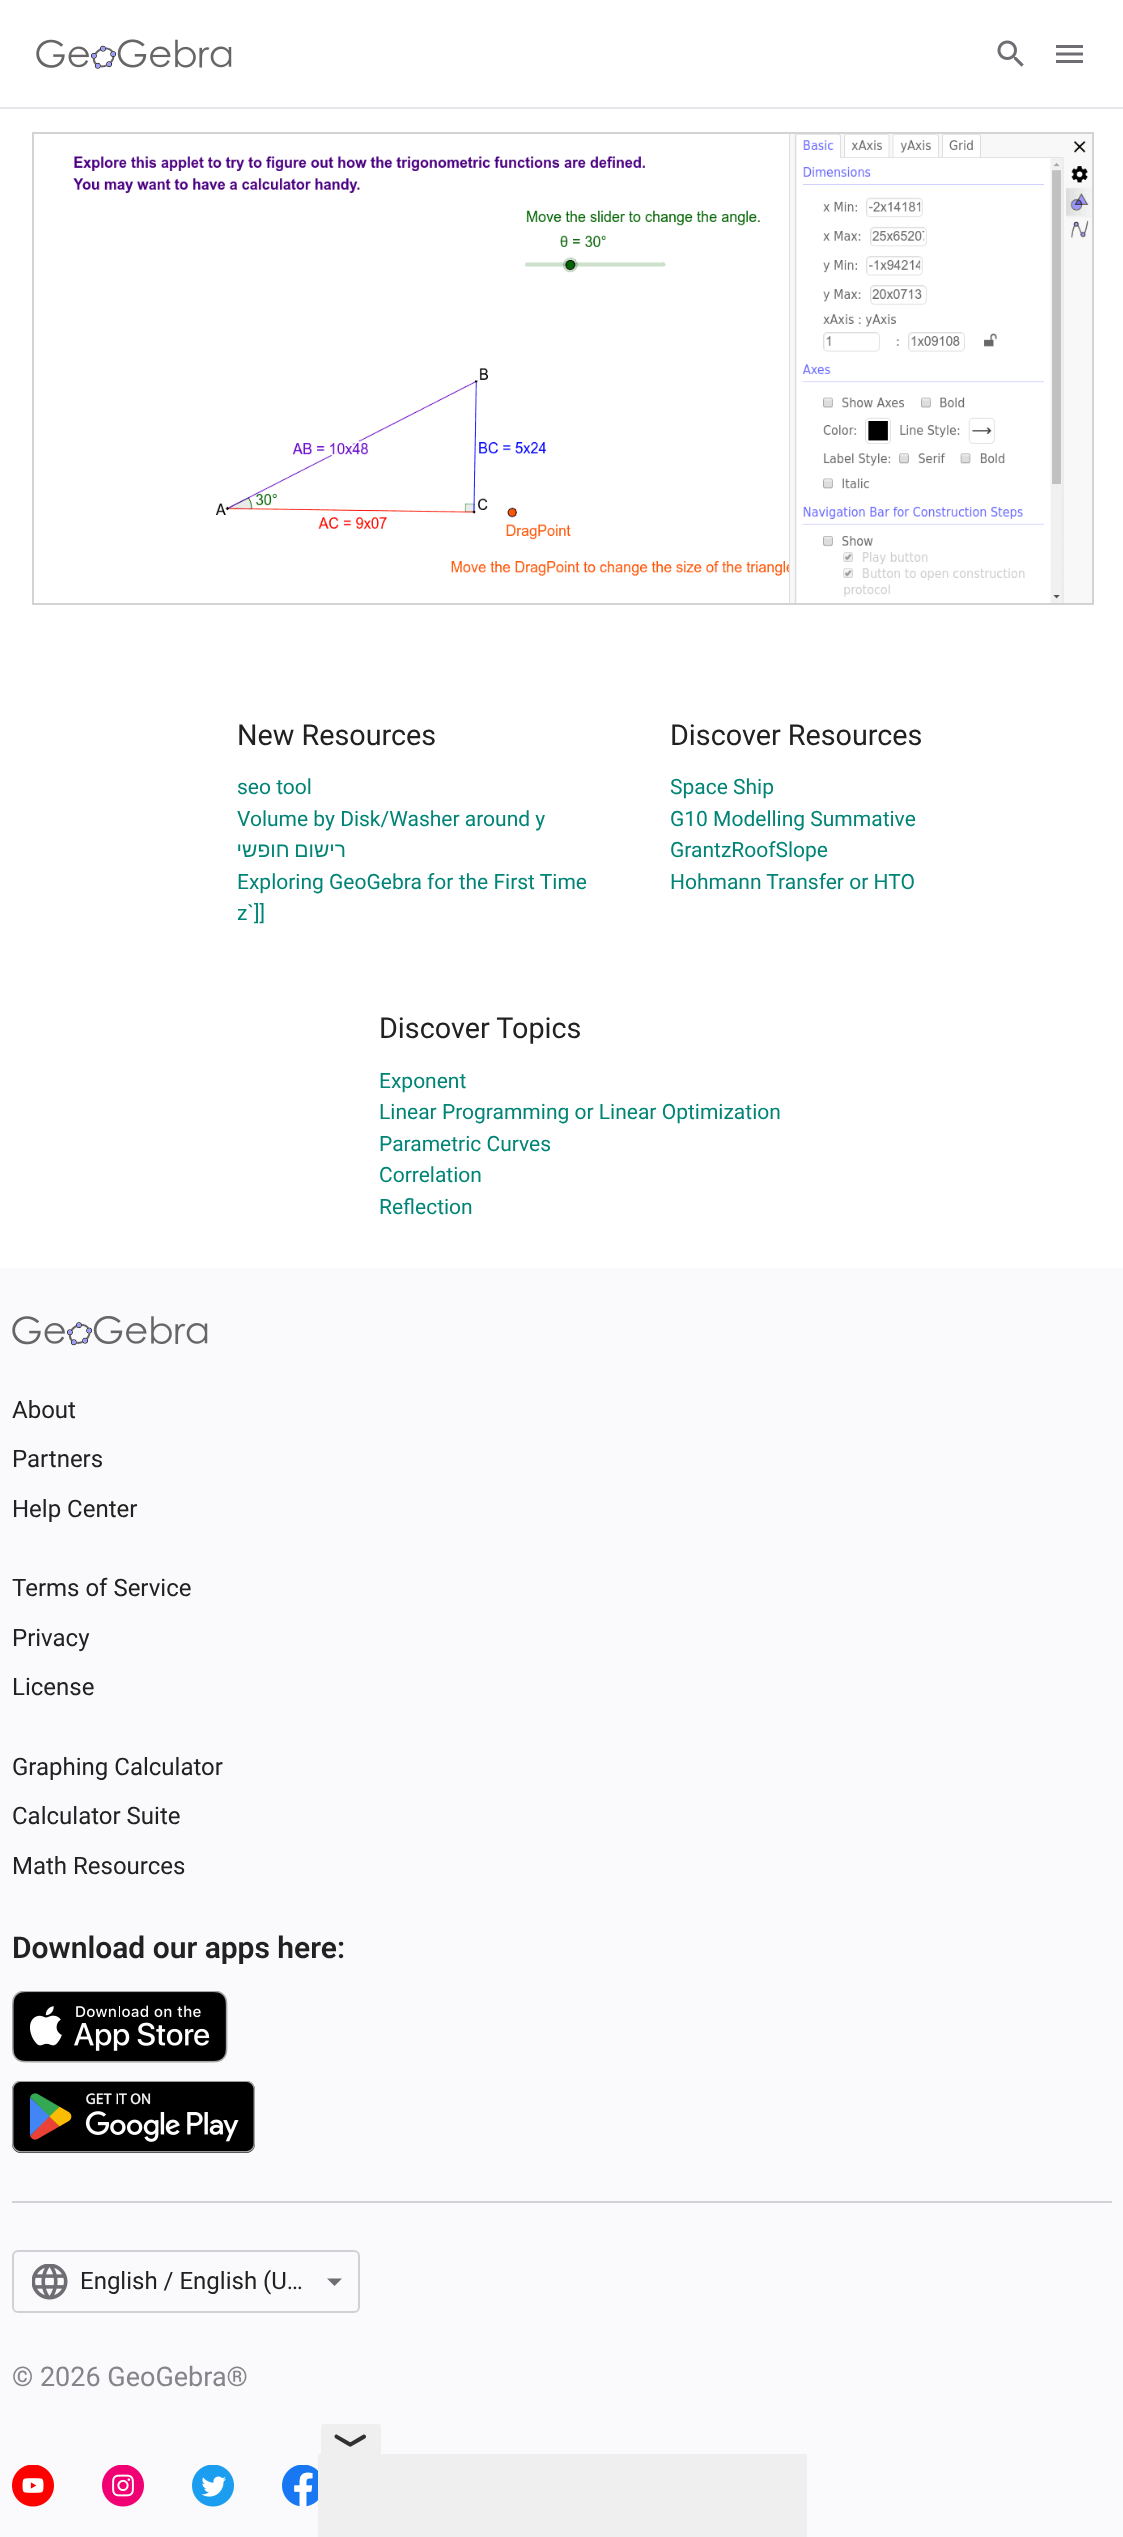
(async () => {
  const canvas = document.querySelector("canvas");
  canvas.width = 1123;
  canvas.height = 2537;
  const ctx = canvas.getContext("2d");
  ctx.miterLimit = 4;
  ctx.fontKerning = "normal";
  async function loadImage(src) {
    const img = new Image();
    img.src = src;
    await img.decode();
    return img;
  }
  let path;

  ctx.fillStyle = "#ffffff";
  ctx.fillRect(0, 0, 1123, 2537);
  ctx.fillStyle = "#e6e6eb";
  ctx.fillRect(0, 107, 1123, 2);
  ctx.drawImage(await loadImage("img/1.png"), 36, 39, 196, 30);
  ctx.drawImage(await loadImage("img/2.png"), 997, 40, 27, 27);
  ctx.drawImage(await loadImage("img/3.png"), 1056, 45, 27, 18);
  ctx.drawImage(await loadImage("img/4.png"), 73, 134, 1019, 469);
  ctx.strokeStyle = "#d3d3d3";
  ctx.lineWidth = 2;
  ctx.strokeRect(33, 133, 1060, 471);
  ctx.fillStyle = "#fafafc";
  ctx.fillRect(0, 1268, 1123, 1269);
  ctx.drawImage(await loadImage("img/5.png"), 12, 1316, 196, 30);
  ctx.drawImage(await loadImage("img/6.png"), 12, 1991, 216, 72);
  ctx.drawImage(await loadImage("img/7.png"), 12, 2081, 243, 72);
  ctx.fillStyle = "#d1d0d6";
  ctx.fillRect(12, 2201, 1100, 2);
  ctx.beginPath();
  ctx.roundRect(13, 2251, 346, 61, 5);
  ctx.strokeStyle = "#d1d0d6";
  ctx.stroke();
  ctx.drawImage(await loadImage("img/8.png"), 32, 2264, 36, 36);
  ctx.fillStyle = "#6e6d73";
  path = new Path2D("M327 2278.5L334.5 2286L342 2278.5Z");
  ctx.fill(path);
  ctx.drawImage(await loadImage("img/9.png"), 12, 2465, 42, 42);
  ctx.drawImage(await loadImage("img/10.png"), 102, 2465, 42, 42);
  ctx.drawImage(await loadImage("img/11.png"), 192, 2465, 42, 42);
  ctx.drawImage(await loadImage("img/12.png"), 282, 2465, 36, 42);
  ctx.fillStyle = "#efefef";
  ctx.beginPath();
  ctx.roundRect(321, 2424, 60, 30, [3, 3, 0, 0]);
  ctx.fill();
  ctx.fillStyle = "#313131";
  path = new Path2D("M337.5 2435L351.5 2443C353 2445 350.5 2447.5 348.5 2446L335 2438C333.5 2436 335.5 2433.5 337.5 2435Z");
  ctx.fill(path);
  path = new Path2D("M350 2442.5L363.5 2434.5C366 2434 367 2437.5 365 2438.5L351 2446.5C349 2447 347.5 2443.5 350 2442.5Z");
  ctx.fill(path);
  ctx.fillStyle = "#efefef";
  ctx.fillRect(318, 2454, 489, 83);
  ctx.font = "28.75px Roboto";
  ctx.fillStyle = "#212121";
  ctx.fillText("New Resources", 237, 745);
  ctx.font = "21px Roboto";
  ctx.fillStyle = "#008475";
  ctx.fillText("seo tool", 237, 794);
  ctx.fillText("Volume by Disk/Washer around y", 237, 826);
  ctx.wordSpacing = "-1px";
  ctx.direction = "rtl";
  ctx.font = "21px Liberation Sans";
  ctx.fillText("רישום חופשי", 346, 857);
  ctx.wordSpacing = "0px";
  ctx.direction = "ltr";
  ctx.font = "21px Roboto";
  ctx.fillText("Exploring GeoGebra for the First Time", 237, 889);
  ctx.fillText("z`]]", 237, 920);
  ctx.font = "28.75px Roboto";
  ctx.fillStyle = "#212121";
  ctx.fillText("Discover Resources", 670, 745);
  ctx.font = "21px Roboto";
  ctx.fillStyle = "#008475";
  for (const [text, x, y] of [
    ["Space Ship", 670, 794],
    ["G10 Modelling Summative", 670, 826],
    ["GrantzRoofSlope", 670, 857],
    ["Hohmann Transfer or HTO", 670, 889],
  ]) {
    ctx.fillText(text, x, y);
  }
  ctx.font = "28.75px Roboto";
  ctx.fillStyle = "#212121";
  ctx.fillText("Discover Topics", 379, 1038);
  ctx.font = "21px Roboto";
  ctx.fillStyle = "#008475";
  for (const [text, x, y] of [
    ["Exponent", 379, 1088],
    ["Linear Programming or Linear Optimization", 379, 1119],
    ["Parametric Curves", 379, 1151],
    ["Correlation", 379, 1182],
    ["Reflection", 379, 1214],
  ]) {
    ctx.fillText(text, x, y);
  }
  ctx.font = "24px Roboto";
  ctx.fillStyle = "#212121";
  for (const [text, x, y] of [
    ["About", 12, 1418],
    ["Partners", 12, 1467],
    ["Help Center", 12, 1517],
    ["Terms of Service", 12, 1596],
    ["Privacy", 12, 1646],
    ["License", 12, 1695],
    ["Graphing Calculator", 12, 1775],
    ["Calculator Suite", 12, 1824],
    ["Math Resources", 12, 1874],
  ]) {
    ctx.fillText(text, x, y);
  }
  ctx.font = "600 30px Roboto";
  ctx.fillText("Download our apps here:", 12, 1958);
  ctx.font = "24px Roboto";
  ctx.fillText("English / English (U…", 80, 2289);
  ctx.font = "27px Roboto";
  ctx.fillStyle = "#85848a";
  ctx.fillText("© 2026 GeoGebra®", 12, 2386);
})();
